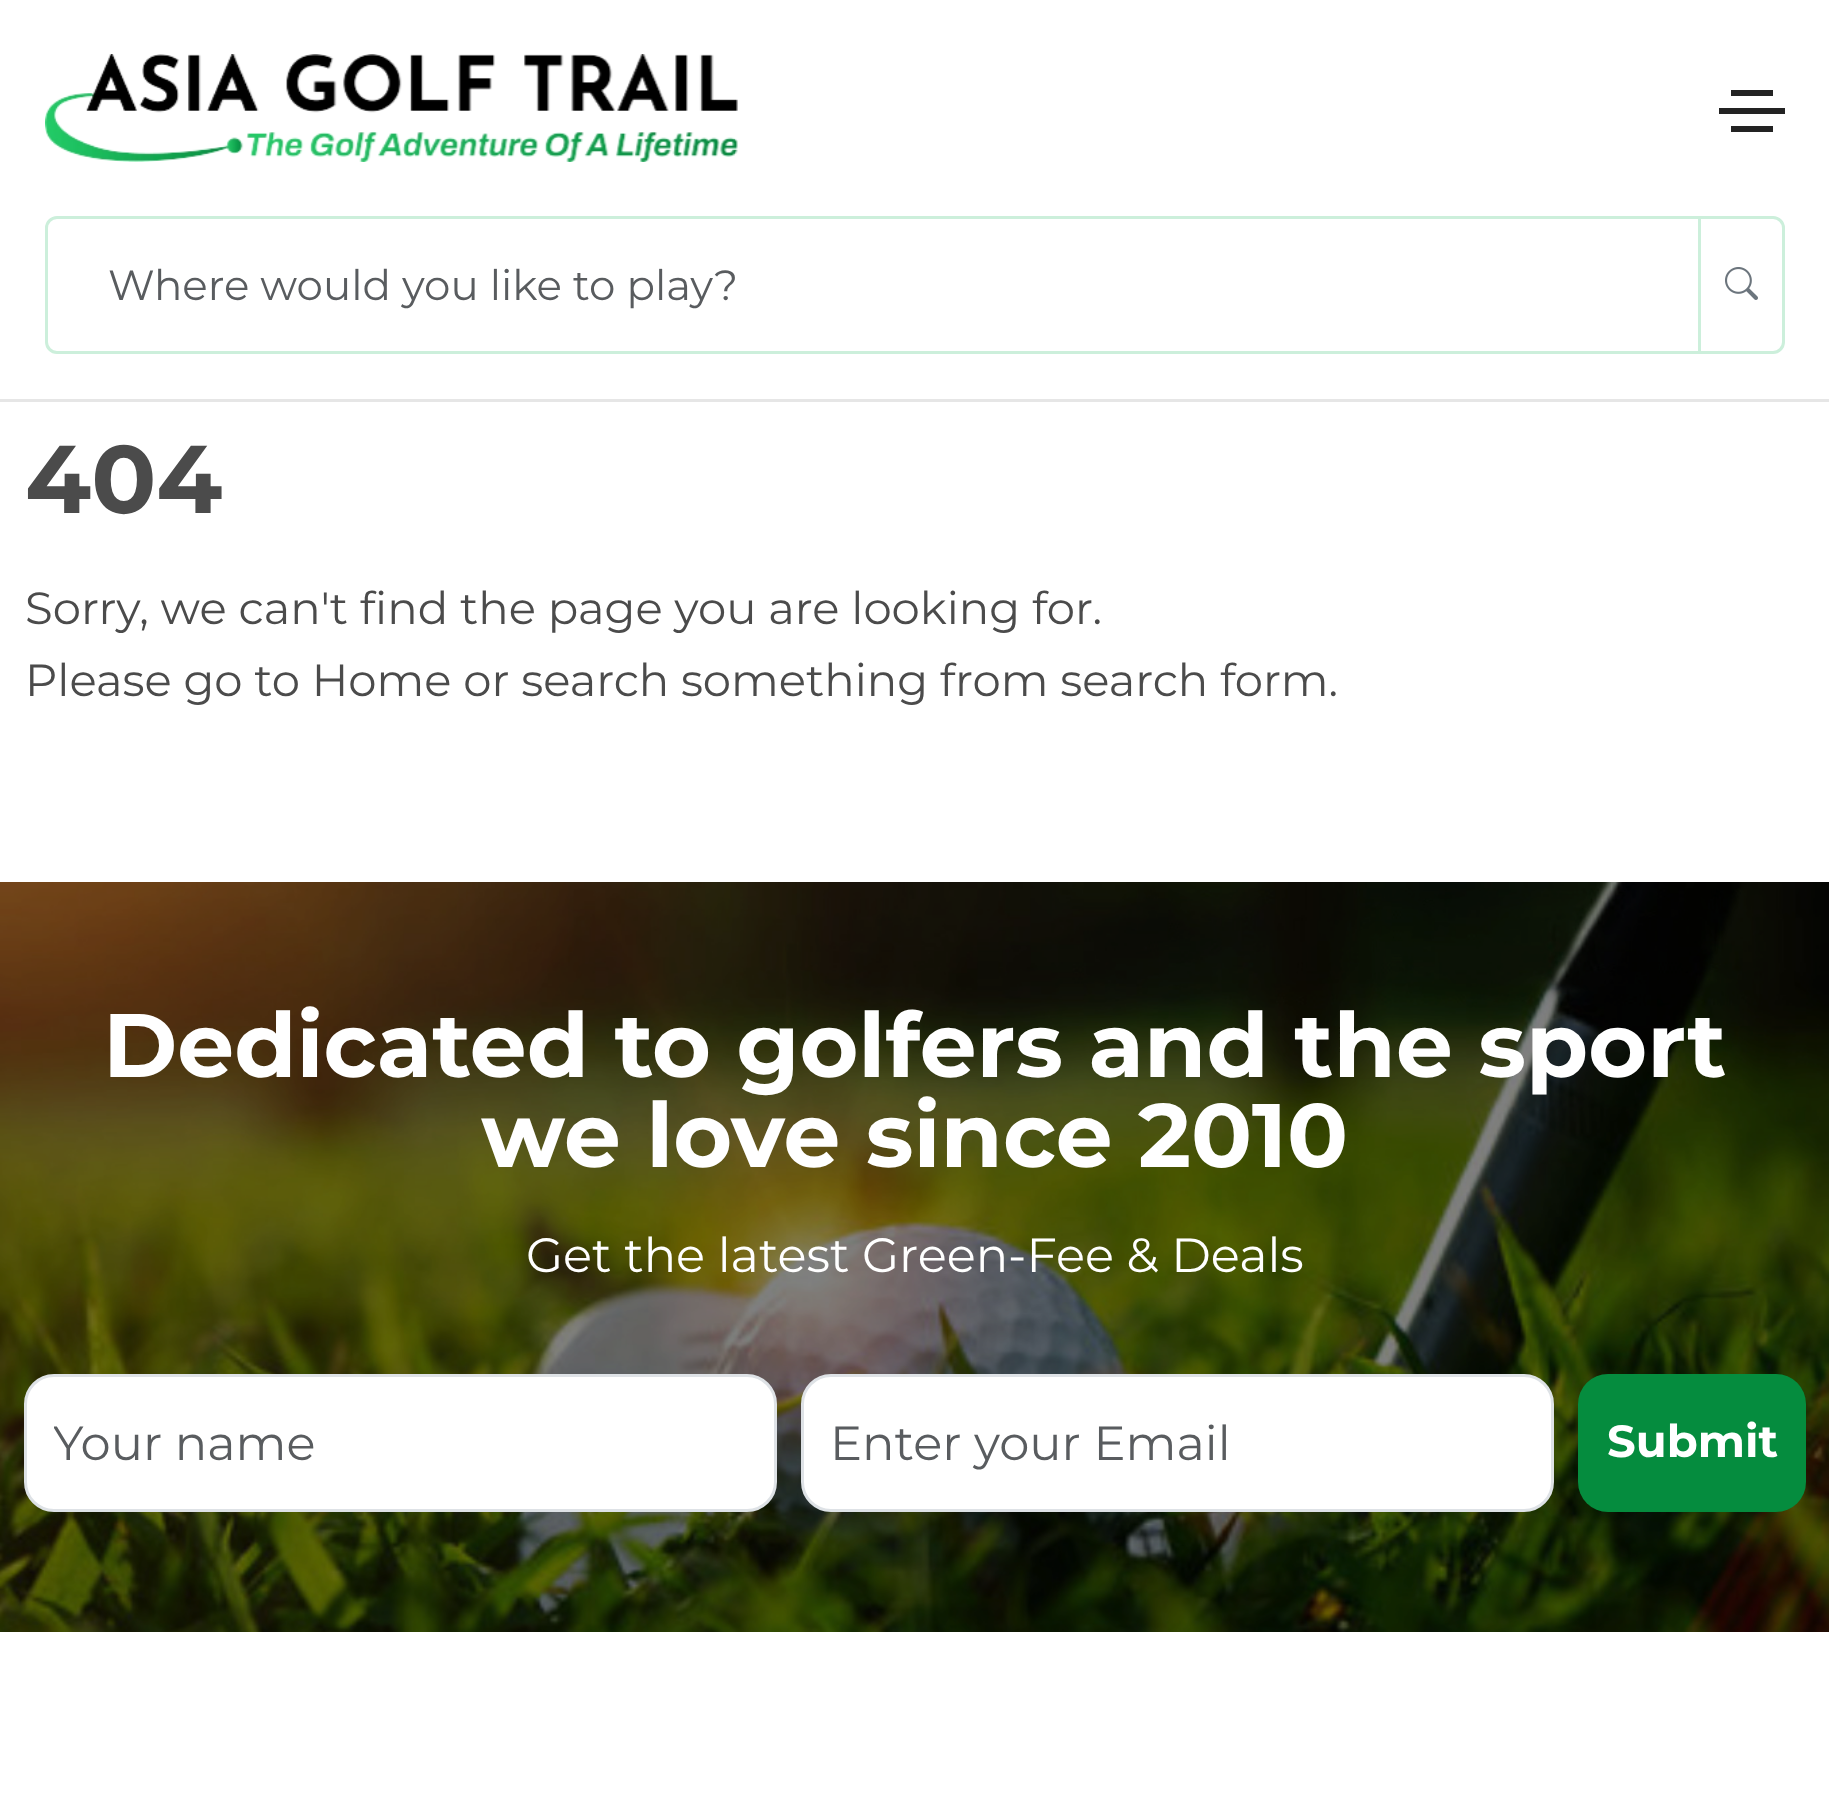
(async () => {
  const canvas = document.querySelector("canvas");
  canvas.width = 1829;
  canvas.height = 1799;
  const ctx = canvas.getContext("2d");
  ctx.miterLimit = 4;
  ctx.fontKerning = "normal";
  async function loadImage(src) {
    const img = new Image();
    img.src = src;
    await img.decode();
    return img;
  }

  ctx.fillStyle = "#ffffff";
  ctx.fillRect(0, 0, 1829, 1799);
  ctx.fillStyle = "#e6e6e6";
  ctx.fillRect(0, 399, 1829, 3);
  ctx.drawImage(await loadImage("img/1.png"), 45, 54, 693, 108);
  for (const [x, y, w, h, color] of [
    [1731, 90, 42, 6, "#232323"],
    [1719, 108, 66, 6, "#232323"],
    [1731, 126, 42, 6, "#232323"],
  ]) {
    ctx.fillStyle = color;
    ctx.fillRect(x, y, w, h);
  }
  ctx.beginPath();
  ctx.roundRect(46.5, 217.5, 1653, 135, [10.5, 0, 0, 10.5]);
  ctx.strokeStyle = "#ccefdb";
  ctx.lineWidth = 3;
  ctx.stroke();
  ctx.beginPath();
  ctx.roundRect(1699.5, 217.5, 84, 135, [0, 10.5, 10.5, 0]);
  ctx.stroke();
  ctx.drawImage(await loadImage("img/2.png"), 1725, 267, 33, 33);
  ctx.drawImage(await loadImage("img/3.png"), 0, 882, 1829, 750);
  ctx.fillStyle = "#ffffff";
  ctx.beginPath();
  ctx.roundRect(25.5, 1375.5, 750, 135, 28.5);
  ctx.fill();
  ctx.strokeStyle = "#dee2e6";
  ctx.stroke();
  ctx.beginPath();
  ctx.roundRect(802.5, 1375.5, 750, 135, 28.5);
  ctx.fill();
  ctx.stroke();
  ctx.fillStyle = "#058c3e";
  ctx.beginPath();
  ctx.roundRect(1578, 1374, 228, 138, 30);
  ctx.fill();
  ctx.font = "42px Montserrat";
  ctx.fillStyle = "#595c5f";
  ctx.fillText("Where would you like to play?", 108, 300);
  ctx.font = "bold 96px Montserrat";
  ctx.fillStyle = "#4b4b4b";
  ctx.fillText("404", 25, 513);
  ctx.font = "45px Montserrat";
  ctx.fillText("Sorry, we can't find the page you are looking for.", 25, 624);
  ctx.fillText("Please go to Home or search something from search form.", 25, 696);
  ctx.font = "bold 90px Montserrat";
  ctx.fillStyle = "#ffffff";
  ctx.fillText("Dedicated to golfers and the sport", 103, 1077);
  ctx.fillText("we love since 2010", 481, 1167);
  ctx.font = "48px Montserrat";
  ctx.fillText("Get the latest Green-Fee & Deals", 526, 1272);
  ctx.save();
  ctx.beginPath();
  ctx.rect(54, 1416, 696, 57);
  ctx.clip();
  ctx.fillStyle = "#595c5f";
  ctx.fillText("Your name", 53, 1460);
  ctx.restore();
  ctx.fillStyle = "#595c5f";
  ctx.fillText("Enter your Email", 830, 1460);
  ctx.font = "bold 45px Montserrat";
  ctx.fillStyle = "#ffffff";
  ctx.fillText("Submit", 1607, 1457);
})();
